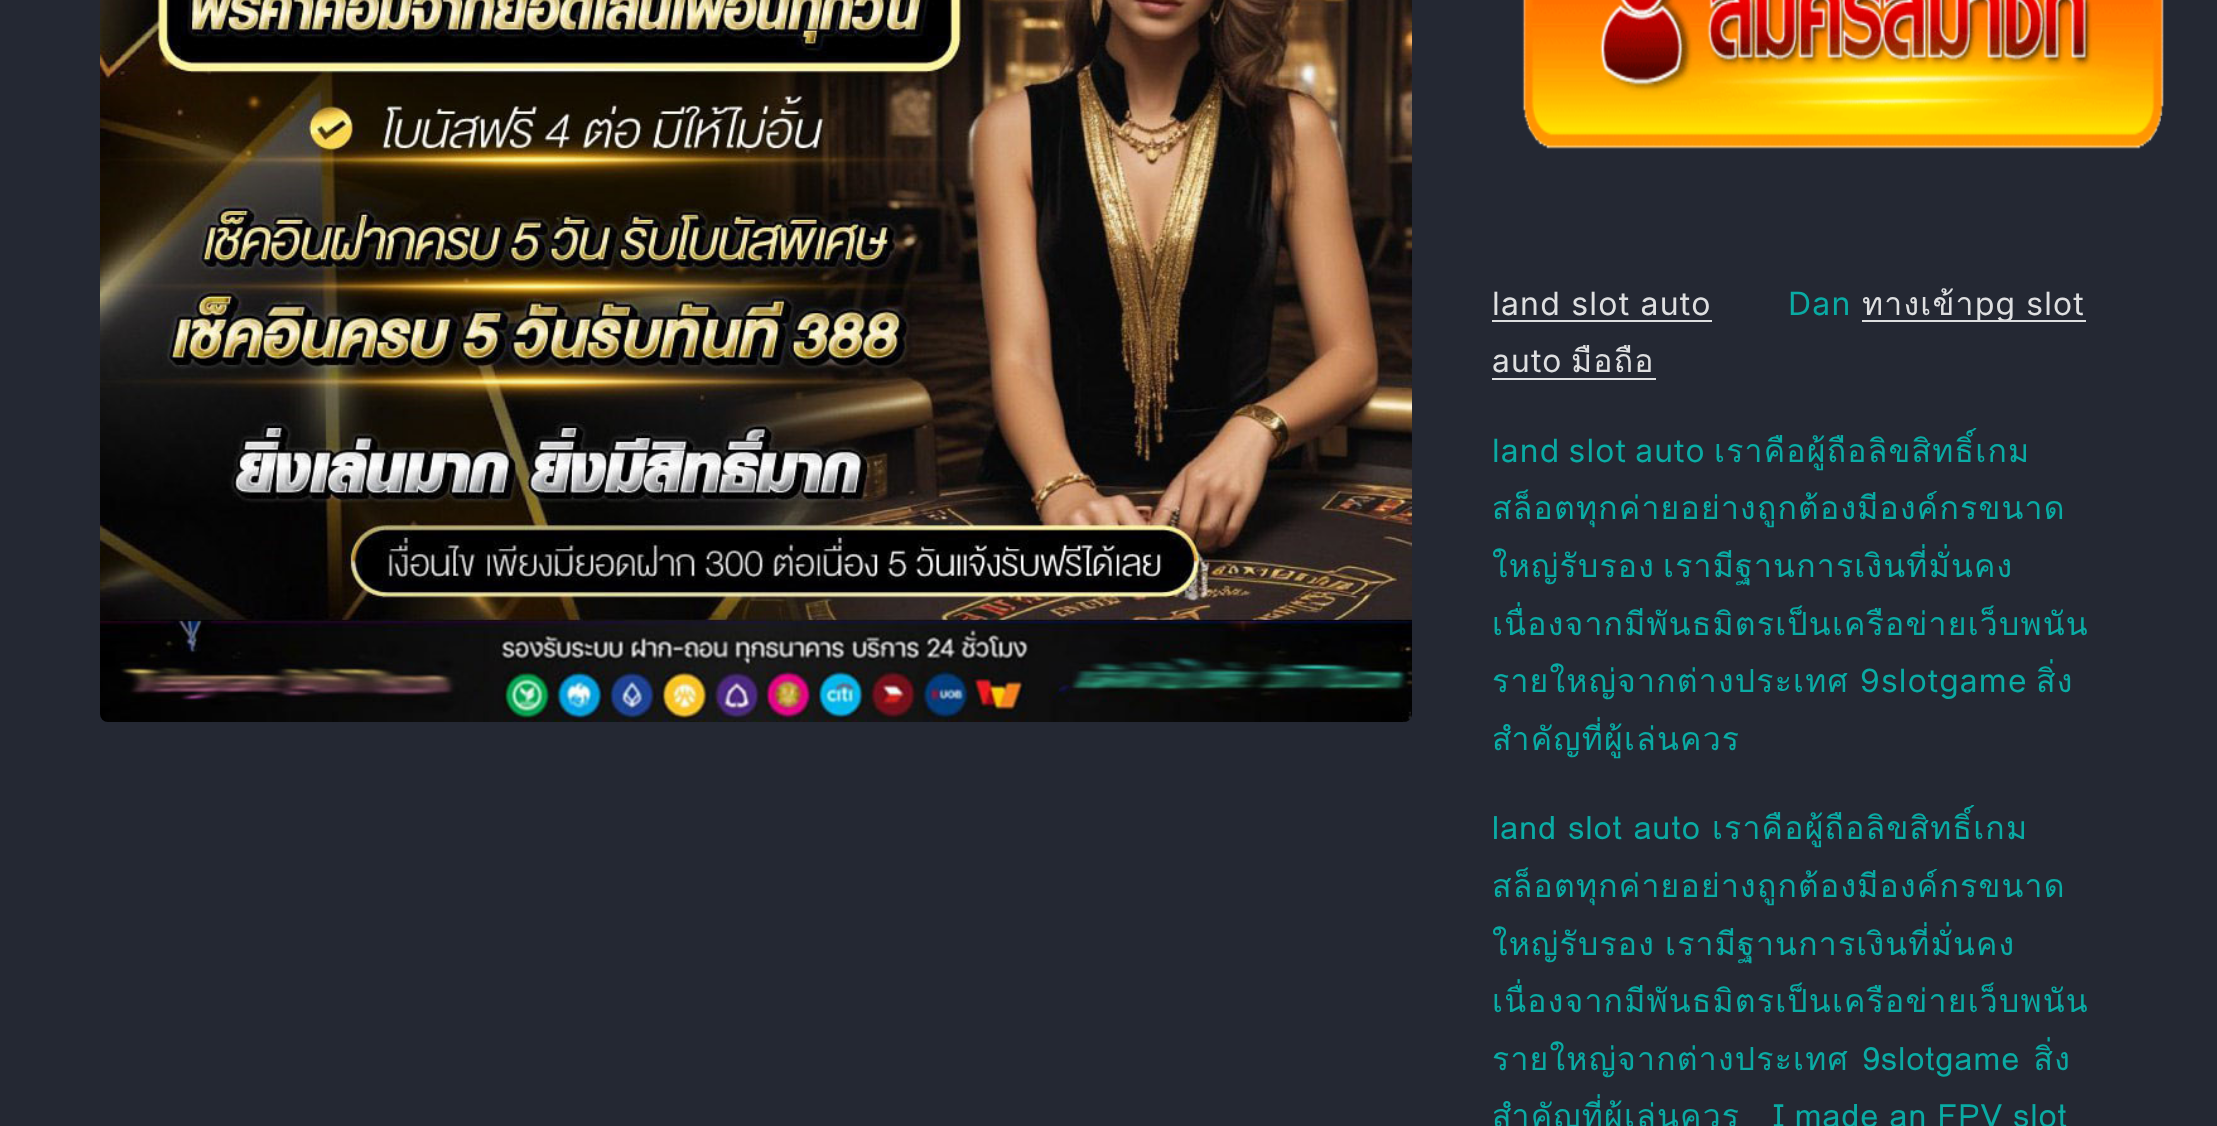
(async () => {
  const canvas = document.querySelector("canvas");
  canvas.width = 2217;
  canvas.height = 1126;
  const ctx = canvas.getContext("2d");
  ctx.miterLimit = 4;
  ctx.fontKerning = "normal";
  async function loadImage(src) {
    const img = new Image();
    img.src = src;
    await img.decode();
    return img;
  }

  ctx.fillStyle = "#242833";
  ctx.fillRect(0, 0, 2217, 1126);
  ctx.drawImage(await loadImage("img/1.png"), 100, 0, 1312, 722);
  ctx.drawImage(await loadImage("img/2.png"), 1522, 0, 642, 149);
  for (const [x, y, w, h, color] of [
    [1492, 320, 220, 2, "#dedfe0"],
    [1862, 320, 224, 2, "#dedfe0"],
    [1492, 378, 164, 2, "#dedfe0"],
  ]) {
    ctx.fillStyle = color;
    ctx.fillRect(x, y, w, h);
  }
  ctx.letterSpacing = "1.2px";
  ctx.font = "32px Inter";
  ctx.fillText("land slot auto", 1492, 315);
  ctx.fillStyle = "#0aaba4";
  ctx.fillText("Dan", 1788, 315);
  ctx.font = "32px Loma";
  ctx.fillStyle = "#dedfe0";
  ctx.fillText("ทางเข้า", 1862, 315);
  ctx.font = "32px 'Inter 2'";
  ctx.fillText("pg slot", 1975, 315);
  ctx.fillText("auto", 1492, 372);
  ctx.font = "32px Loma";
  ctx.fillText("มือถือ", 1571, 372);
  ctx.wordSpacing = "-2px";
  ctx.font = "32px 'Inter 2'";
  ctx.fillStyle = "#0aaba4";
  ctx.fillText("land slot auto", 1492, 462);
  ctx.wordSpacing = "0px";
  ctx.font = "32px Loma";
  ctx.fillText("เราคือผู้ถือลิขสิทธิ์เกม", 1714, 462);
  ctx.fillText("สล็อตทุกค่ายอย่างถูกต้องมีองค์กรขนาด", 1492, 519);
  ctx.wordSpacing = "-4px";
  ctx.fillText("ใหญ่รับรอง เรามีฐานการเงินที่มั่นคง", 1492, 577);
  ctx.wordSpacing = "0px";
  ctx.fillText("เนื่องจากมีพันธมิตรเป็นเครือข่ายเว็บพนัน", 1492, 635);
  ctx.fillText("รายใหญ่จากต่างประเทศ", 1492, 692);
  ctx.font = "32px 'Inter 2'";
  ctx.fillText("9slotgame", 1860, 692);
  ctx.font = "32px Loma";
  ctx.fillText("สิ่ง", 2036, 692);
  ctx.fillText("สำคัญที่ผู้เล่นควร", 1492, 750);
  ctx.wordSpacing = "-1px";
  ctx.fillText("land slot auto เราคือผู้ถือลิขสิทธิ์เกม", 1492, 839);
  ctx.wordSpacing = "0px";
  ctx.fillText("สล็อตทุกค่ายอย่างถูกต้องมีองค์กรขนาด", 1492, 897);
  ctx.wordSpacing = "-2px";
  ctx.fillText("ใหญ่รับรอง เรามีฐานการเงินที่มั่นคง", 1492, 955);
  ctx.wordSpacing = "0px";
  ctx.fillText("เนื่องจากมีพันธมิตรเป็นเครือข่ายเว็บพนัน", 1492, 1012);
  ctx.wordSpacing = "1px";
  ctx.fillText("รายใหญ่จากต่างประเทศ 9slotgame สิ่ง", 1492, 1070);
  ctx.wordSpacing = "-2px";
  ctx.fillText("สำคัญที่ผู้เล่นควร I made an FPV slot", 1492, 1127);
})();
